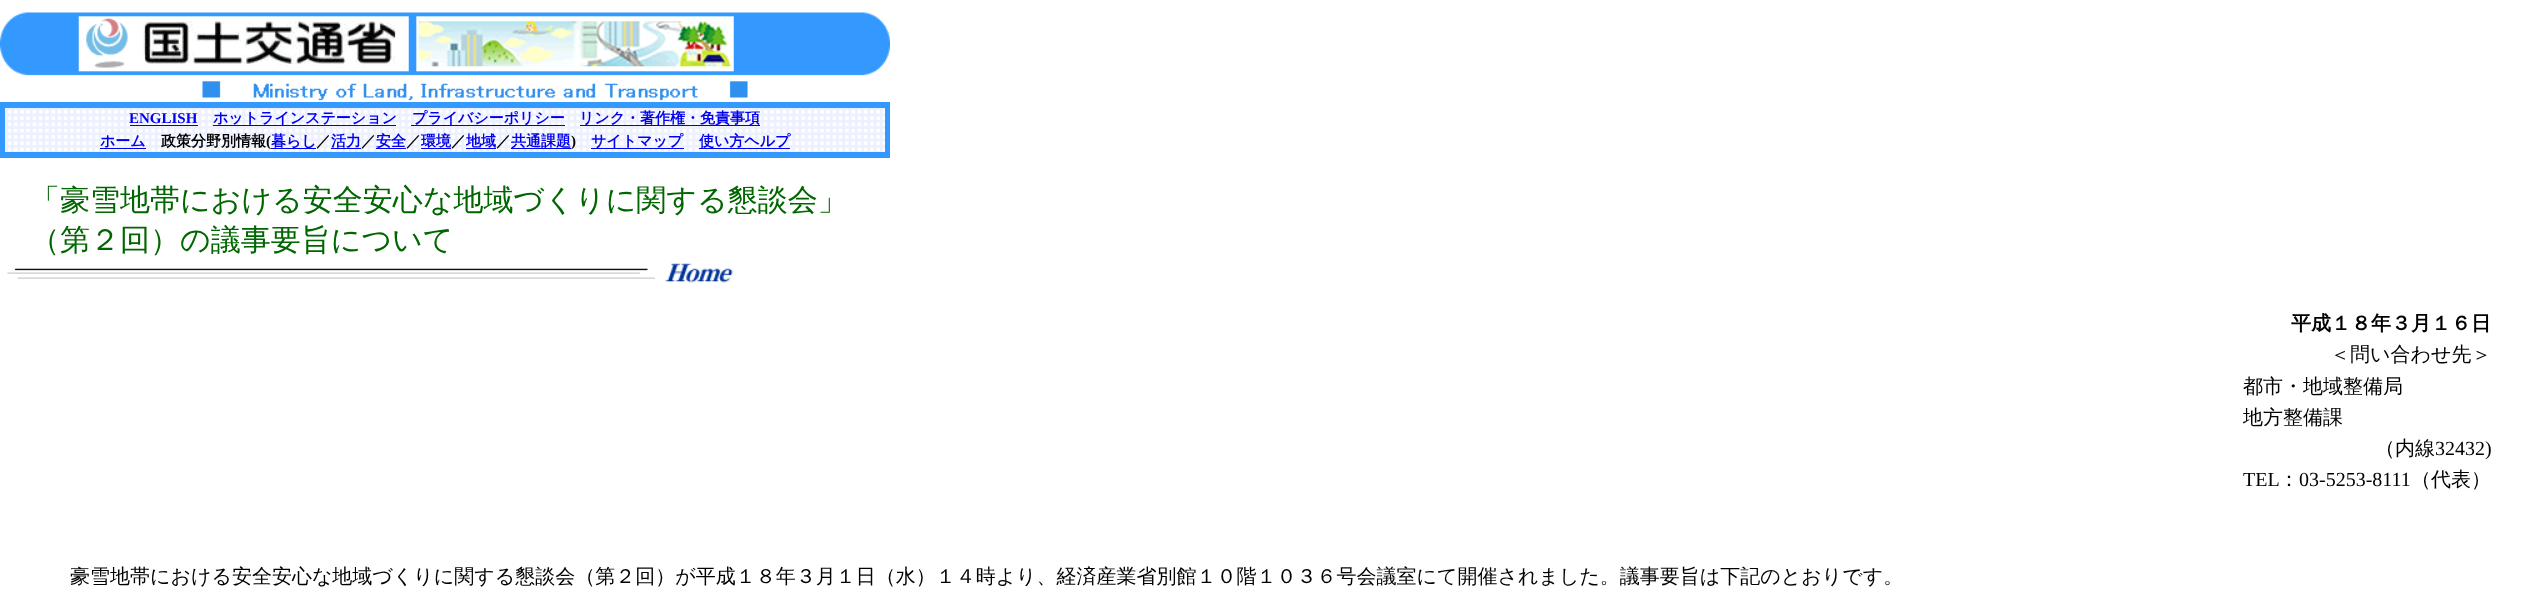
(async () => {
  const canvas = document.querySelector("canvas");
  canvas.width = 2545;
  canvas.height = 608;
  const ctx = canvas.getContext("2d");
  ctx.miterLimit = 4;
  ctx.fontKerning = "normal";
  async function loadImage(src) {
    const img = new Image();
    img.src = src;
    await img.decode();
    return img;
  }

  ctx.fillStyle = "#ffffff";
  ctx.fillRect(0, 0, 2545, 608);
  ctx.drawImage(await loadImage("img/1.png"), 0, 12, 750, 90);
  ctx.drawImage(await loadImage("img/2.png"), 750, 12, 140, 90);
  ctx.drawImage(await loadImage("img/3.png"), 5, 108, 880, 44);
  for (const [x, y, w, h, color] of [
    [0, 102, 890, 6, "#3399ff"],
    [0, 108, 5, 45, "#3399ff"],
    [130, 125, 68, 1, "#0000ee"],
    [213, 125, 183, 1, "#0000ee"],
    [411, 125, 154, 1, "#0000ee"],
    [580, 125, 180, 1, "#0000ee"],
    [885, 108, 5, 45, "#3399ff"],
    [100, 148, 46, 1, "#0000ee"],
    [271, 148, 45, 1, "#0000ee"],
    [331, 148, 30, 1, "#0000ee"],
    [376, 148, 30, 1, "#0000ee"],
    [421, 148, 30, 1, "#0000ee"],
    [466, 148, 30, 1, "#0000ee"],
    [511, 148, 60, 1, "#0000ee"],
    [591, 148, 93, 1, "#0000ee"],
    [699, 148, 91, 1, "#0000ee"],
    [0, 152, 890, 6, "#3399ff"],
  ]) {
    ctx.fillStyle = color;
    ctx.fillRect(x, y, w, h);
  }
  ctx.drawImage(await loadImage("img/4.png"), 7, 268, 623, 11);
  ctx.drawImage(await loadImage("img/5.png"), 630, 263, 103, 20);
  ctx.font = "bold 15px Liberation Serif";
  ctx.fillStyle = "#0000ee";
  ctx.fillText("ENGLISH", 129, 123);
  ctx.font = "bold 15px WenQuanYi Zen Hei";
  for (const [text, x, y] of [
    ["ホットラインステーション", 213, 123],
    ["プライバシーポリシー", 412, 123],
    ["リンク・著作権・免責事項", 579, 123],
    ["ホーム", 100, 146],
  ]) {
    ctx.fillText(text, x, y);
  }
  ctx.fillStyle = "#000000";
  ctx.fillText("政策分野別情報", 161, 146);
  ctx.font = "bold 15px Liberation Serif";
  ctx.fillText("(", 266, 146);
  ctx.font = "bold 15px WenQuanYi Zen Hei";
  ctx.fillStyle = "#0000ee";
  ctx.fillText("暮らし", 271, 146);
  ctx.fillStyle = "#000000";
  ctx.fillText("／", 316, 146);
  ctx.fillStyle = "#0000ee";
  ctx.fillText("活力", 331, 146);
  ctx.fillStyle = "#000000";
  ctx.fillText("／", 361, 146);
  ctx.fillStyle = "#0000ee";
  ctx.fillText("安全", 376, 146);
  ctx.fillStyle = "#000000";
  ctx.fillText("／", 406, 146);
  ctx.fillStyle = "#0000ee";
  ctx.fillText("環境", 421, 146);
  ctx.fillStyle = "#000000";
  ctx.fillText("／", 451, 146);
  ctx.fillStyle = "#0000ee";
  ctx.fillText("地域", 466, 146);
  ctx.fillStyle = "#000000";
  ctx.fillText("／", 496, 146);
  ctx.fillStyle = "#0000ee";
  ctx.fillText("共通課題", 511, 146);
  ctx.font = "bold 15px Liberation Serif";
  ctx.fillStyle = "#000000";
  ctx.fillText(")", 571, 146);
  ctx.font = "bold 15px WenQuanYi Zen Hei";
  ctx.fillStyle = "#0000ee";
  ctx.fillText("サイトマップ", 591, 146);
  ctx.fillText("使い方ヘルプ", 699, 146);
  ctx.font = "500 30px WenQuanYi Zen Hei";
  ctx.fillStyle = "#006600";
  ctx.fillText("「豪雪地帯における安全安心な地域づくりに関する懇談会」", 30, 210);
  ctx.fillText("（第２回）の議事要旨について", 30, 250);
  ctx.font = "bold 20px WenQuanYi Zen Hei";
  ctx.fillStyle = "#000000";
  ctx.fillText("平成１８年３月１６日", 2291, 330);
  ctx.font = "500 20px WenQuanYi Zen Hei";
  for (const [text, x, y] of [
    ["＜問い合わせ先＞", 2330, 361],
    ["都市・地域整備局", 2243, 393],
    ["地方整備課", 2243, 424],
    ["（内線", 2375, 455],
  ]) {
    ctx.fillText(text, x, y);
  }
  ctx.font = "20px Liberation Serif";
  ctx.fillText("32432)", 2435, 455);
  ctx.fillText("TEL", 2243, 486);
  ctx.font = "500 20px WenQuanYi Zen Hei";
  ctx.fillText("：", 2279, 486);
  ctx.font = "20px Liberation Serif";
  ctx.fillText("03-5253-8111", 2299, 486);
  ctx.font = "500 20px WenQuanYi Zen Hei";
  ctx.fillText("（代表）", 2411, 486);
  ctx.fillText("豪雪地帯における安全安心な地域づくりに関する懇談会（第２回）が平成１８年３月１日（水）１４時より、経済産業省別館１０階１０３６号会議室にて開催されました。議事要旨は下記のとおりです。", 70, 583);
})();
